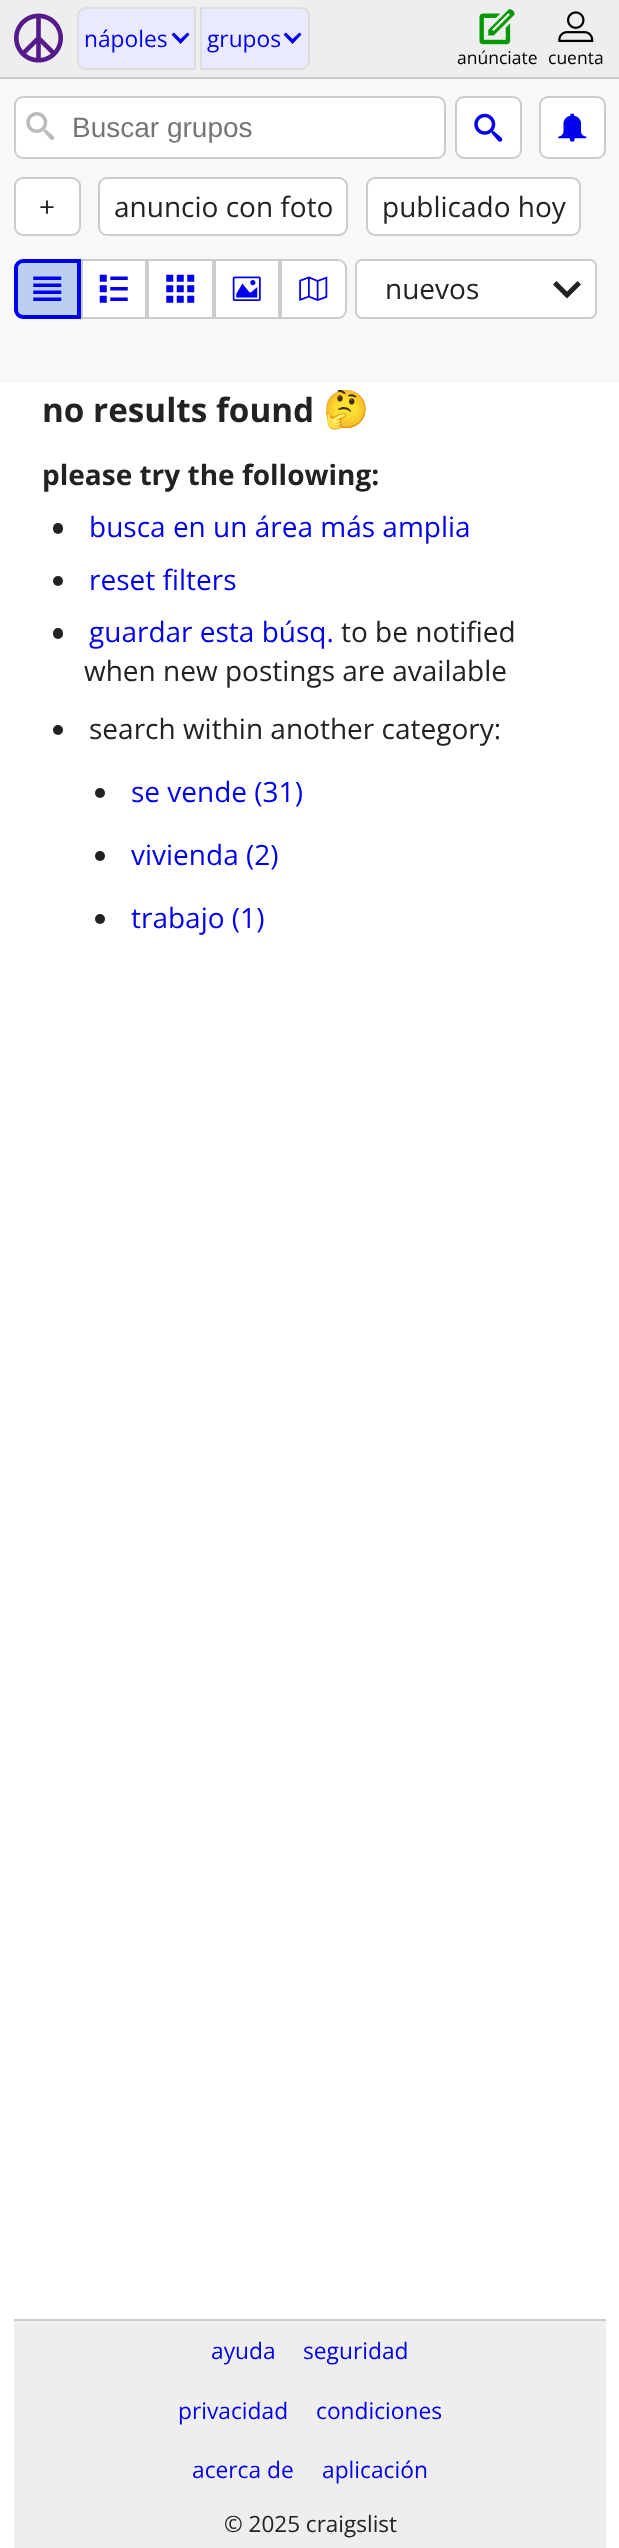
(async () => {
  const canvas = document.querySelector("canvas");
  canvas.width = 619;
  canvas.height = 2548;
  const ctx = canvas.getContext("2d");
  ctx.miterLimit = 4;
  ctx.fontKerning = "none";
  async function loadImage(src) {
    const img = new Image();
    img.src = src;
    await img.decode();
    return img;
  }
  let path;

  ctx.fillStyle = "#ffffff";
  ctx.fillRect(0, 0, 619, 2548);
  ctx.fillStyle = "#eeeeee";
  ctx.fillRect(0, 0, 619, 77);
  ctx.fillStyle = "#cccccc";
  ctx.fillRect(0, 77, 619, 2);
  ctx.drawImage(await loadImage("img/1.png"), 14, 13, 49, 50);
  ctx.fillStyle = "#eaeaff";
  ctx.beginPath();
  ctx.roundRect(78, 8, 117, 61, [8, 0, 0, 8]);
  ctx.fill();
  ctx.strokeStyle = "#dddddd";
  ctx.lineWidth = 2;
  ctx.stroke();
  ctx.fillStyle = "#0000ee";
  path = new Path2D("M189.5 34.5L187.5 32.5L180.5 39L174 32.5L171.5 34.5L180.5 44Z");
  ctx.fill(path);
  ctx.fillStyle = "#eaeaff";
  ctx.beginPath();
  ctx.roundRect(201, 8, 108, 61, [0, 8, 8, 0]);
  ctx.fill();
  ctx.stroke();
  ctx.fillStyle = "#0000ee";
  path = new Path2D("M301.5 34.5L299.5 32.5L292.5 39L286 32.5L283.5 34.5L292.5 44Z");
  ctx.fill(path);
  ctx.drawImage(await loadImage("img/2.png"), 479, 9, 36, 36);
  ctx.drawImage(await loadImage("img/3.png"), 558, 11, 36, 31);
  ctx.fillStyle = "#f8f8f8";
  ctx.fillRect(0, 79, 619, 304);
  ctx.fillStyle = "#ffffff";
  ctx.beginPath();
  ctx.roundRect(15, 97, 430, 61, 8);
  ctx.fill();
  ctx.strokeStyle = "#cccccc";
  ctx.stroke();
  ctx.drawImage(await loadImage("img/4.png"), 26, 112, 29, 28);
  ctx.beginPath();
  ctx.roundRect(456, 97, 65, 61, 8);
  ctx.fill();
  ctx.stroke();
  ctx.drawImage(await loadImage("img/5.png"), 474, 113, 29, 29);
  ctx.beginPath();
  ctx.roundRect(540, 97, 65, 61, 8);
  ctx.fill();
  ctx.stroke();
  ctx.drawImage(await loadImage("img/6.png"), 558, 113, 29, 29);
  ctx.beginPath();
  ctx.roundRect(15, 178, 65, 57, 8);
  ctx.fill();
  ctx.stroke();
  ctx.beginPath();
  ctx.roundRect(99, 178, 248, 57, 8);
  ctx.fill();
  ctx.stroke();
  ctx.beginPath();
  ctx.roundRect(367, 178, 213, 57, 8);
  ctx.fill();
  ctx.stroke();
  ctx.fillStyle = "#bacff2";
  ctx.beginPath();
  ctx.roundRect(16, 261, 63, 56, [7, 0, 0, 7]);
  ctx.fill();
  ctx.strokeStyle = "#0000ee";
  ctx.lineWidth = 4;
  ctx.stroke();
  ctx.drawImage(await loadImage("img/7.png"), 33, 276, 29, 25);
  ctx.fillStyle = "#ffffff";
  ctx.beginPath();
  ctx.rect(82, 260, 64, 58);
  ctx.fill();
  ctx.strokeStyle = "#cccccc";
  ctx.lineWidth = 2;
  ctx.stroke();
  ctx.drawImage(await loadImage("img/8.png"), 99, 274, 29, 29);
  ctx.beginPath();
  ctx.rect(148, 260, 65, 58);
  ctx.fill();
  ctx.stroke();
  ctx.drawImage(await loadImage("img/9.png"), 166, 274, 29, 29);
  ctx.beginPath();
  ctx.rect(215, 260, 64, 58);
  ctx.fill();
  ctx.stroke();
  ctx.drawImage(await loadImage("img/10.png"), 232, 276, 29, 25);
  ctx.beginPath();
  ctx.roundRect(281, 260, 65, 58, [0, 8, 8, 0]);
  ctx.fill();
  ctx.stroke();
  ctx.drawImage(await loadImage("img/11.png"), 299, 276, 29, 25);
  ctx.beginPath();
  ctx.roundRect(356, 260, 240, 58, 6);
  ctx.fill();
  ctx.stroke();
  ctx.fillStyle = "#222222";
  path = new Path2D("M581 284.5L577.5 281L567 291.5L556.5 281L553 284.5L567 298.5Z");
  ctx.fill(path);
  ctx.beginPath();
  ctx.roundRect(53, 523, 10, 11, 5);
  ctx.fill();
  ctx.beginPath();
  ctx.arc(58, 581, 5, 0, Math.PI * 2);
  ctx.fill();
  ctx.beginPath();
  ctx.roundRect(53, 628, 10, 11, 5);
  ctx.fill();
  ctx.beginPath();
  ctx.arc(58, 730, 5, 0, Math.PI * 2);
  ctx.fill();
  ctx.beginPath();
  ctx.arc(100, 793, 5, 0, Math.PI * 2);
  ctx.fill();
  ctx.beginPath();
  ctx.arc(100, 856, 5, 0, Math.PI * 2);
  ctx.fill();
  ctx.beginPath();
  ctx.arc(100, 919, 5, 0, Math.PI * 2);
  ctx.fill();
  ctx.fillStyle = "#eeeeee";
  ctx.fillRect(14, 2321, 592, 227);
  ctx.fillStyle = "#cccccc";
  ctx.fillRect(14, 2319, 592, 2);
  ctx.font = "22.75px Open Sans";
  ctx.fillStyle = "#0000ee";
  ctx.fillText("nápoles", 84, 47);
  ctx.fillText("grupos", 207, 47);
  ctx.font = "17.5px Open Sans";
  ctx.fillStyle = "#000000";
  ctx.fillText("anúnciate", 457, 64);
  ctx.fillText("cuenta", 548, 64);
  ctx.font = "28px Liberation Sans";
  ctx.fillStyle = "#757575";
  ctx.fillText("Buscar grupos", 72, 137);
  ctx.font = "28px Open Sans";
  ctx.fillStyle = "#222222";
  for (const [text, x, y] of [
    ["+", 39, 217],
    ["anuncio con foto", 114, 217],
    ["publicado hoy", 382, 217],
    ["nuevos", 385, 299],
  ]) {
    ctx.fillText(text, x, y);
  }
  ctx.font = "bold 33.25px Open Sans";
  ctx.fillText("no results found", 42, 422);
  ctx.font = "bold 37px Noto Color Emoji";
  ctx.fillText("🤔", 323, 422);
  ctx.font = "bold 28px Open Sans";
  ctx.fillText("please try the following:", 42, 485);
  ctx.font = "28px Open Sans";
  ctx.fillStyle = "#0000ee";
  for (const [text, x, y] of [
    ["busca en un área más amplia", 89, 537],
    ["reset filters", 89, 590],
    ["guardar esta búsq.", 89, 642],
  ]) {
    ctx.fillText(text, x, y);
  }
  ctx.fillStyle = "#222222";
  for (const [text, x, y] of [
    ["to be notified", 341, 642],
    ["when new postings are available", 84, 681],
    ["search within another category:", 89, 739],
  ]) {
    ctx.fillText(text, x, y);
  }
  ctx.fillStyle = "#0000ee";
  for (const [text, x, y] of [
    ["se vende (31)", 131, 802],
    ["vivienda (2)", 131, 865],
    ["trabajo (1)", 131, 928],
  ]) {
    ctx.fillText(text, x, y);
  }
  ctx.font = "22.75px Open Sans";
  for (const [text, x, y] of [
    ["ayuda", 211, 2359],
    ["seguridad", 303, 2359],
    ["privacidad", 178, 2419],
    ["condiciones", 316, 2419],
    ["acerca de", 192, 2478],
    ["aplicación", 322, 2478],
  ]) {
    ctx.fillText(text, x, y);
  }
  ctx.font = "22.5px Open Sans";
  ctx.fillStyle = "#222222";
  ctx.fillText("© 2025 craigslist", 224, 2532);
})();
